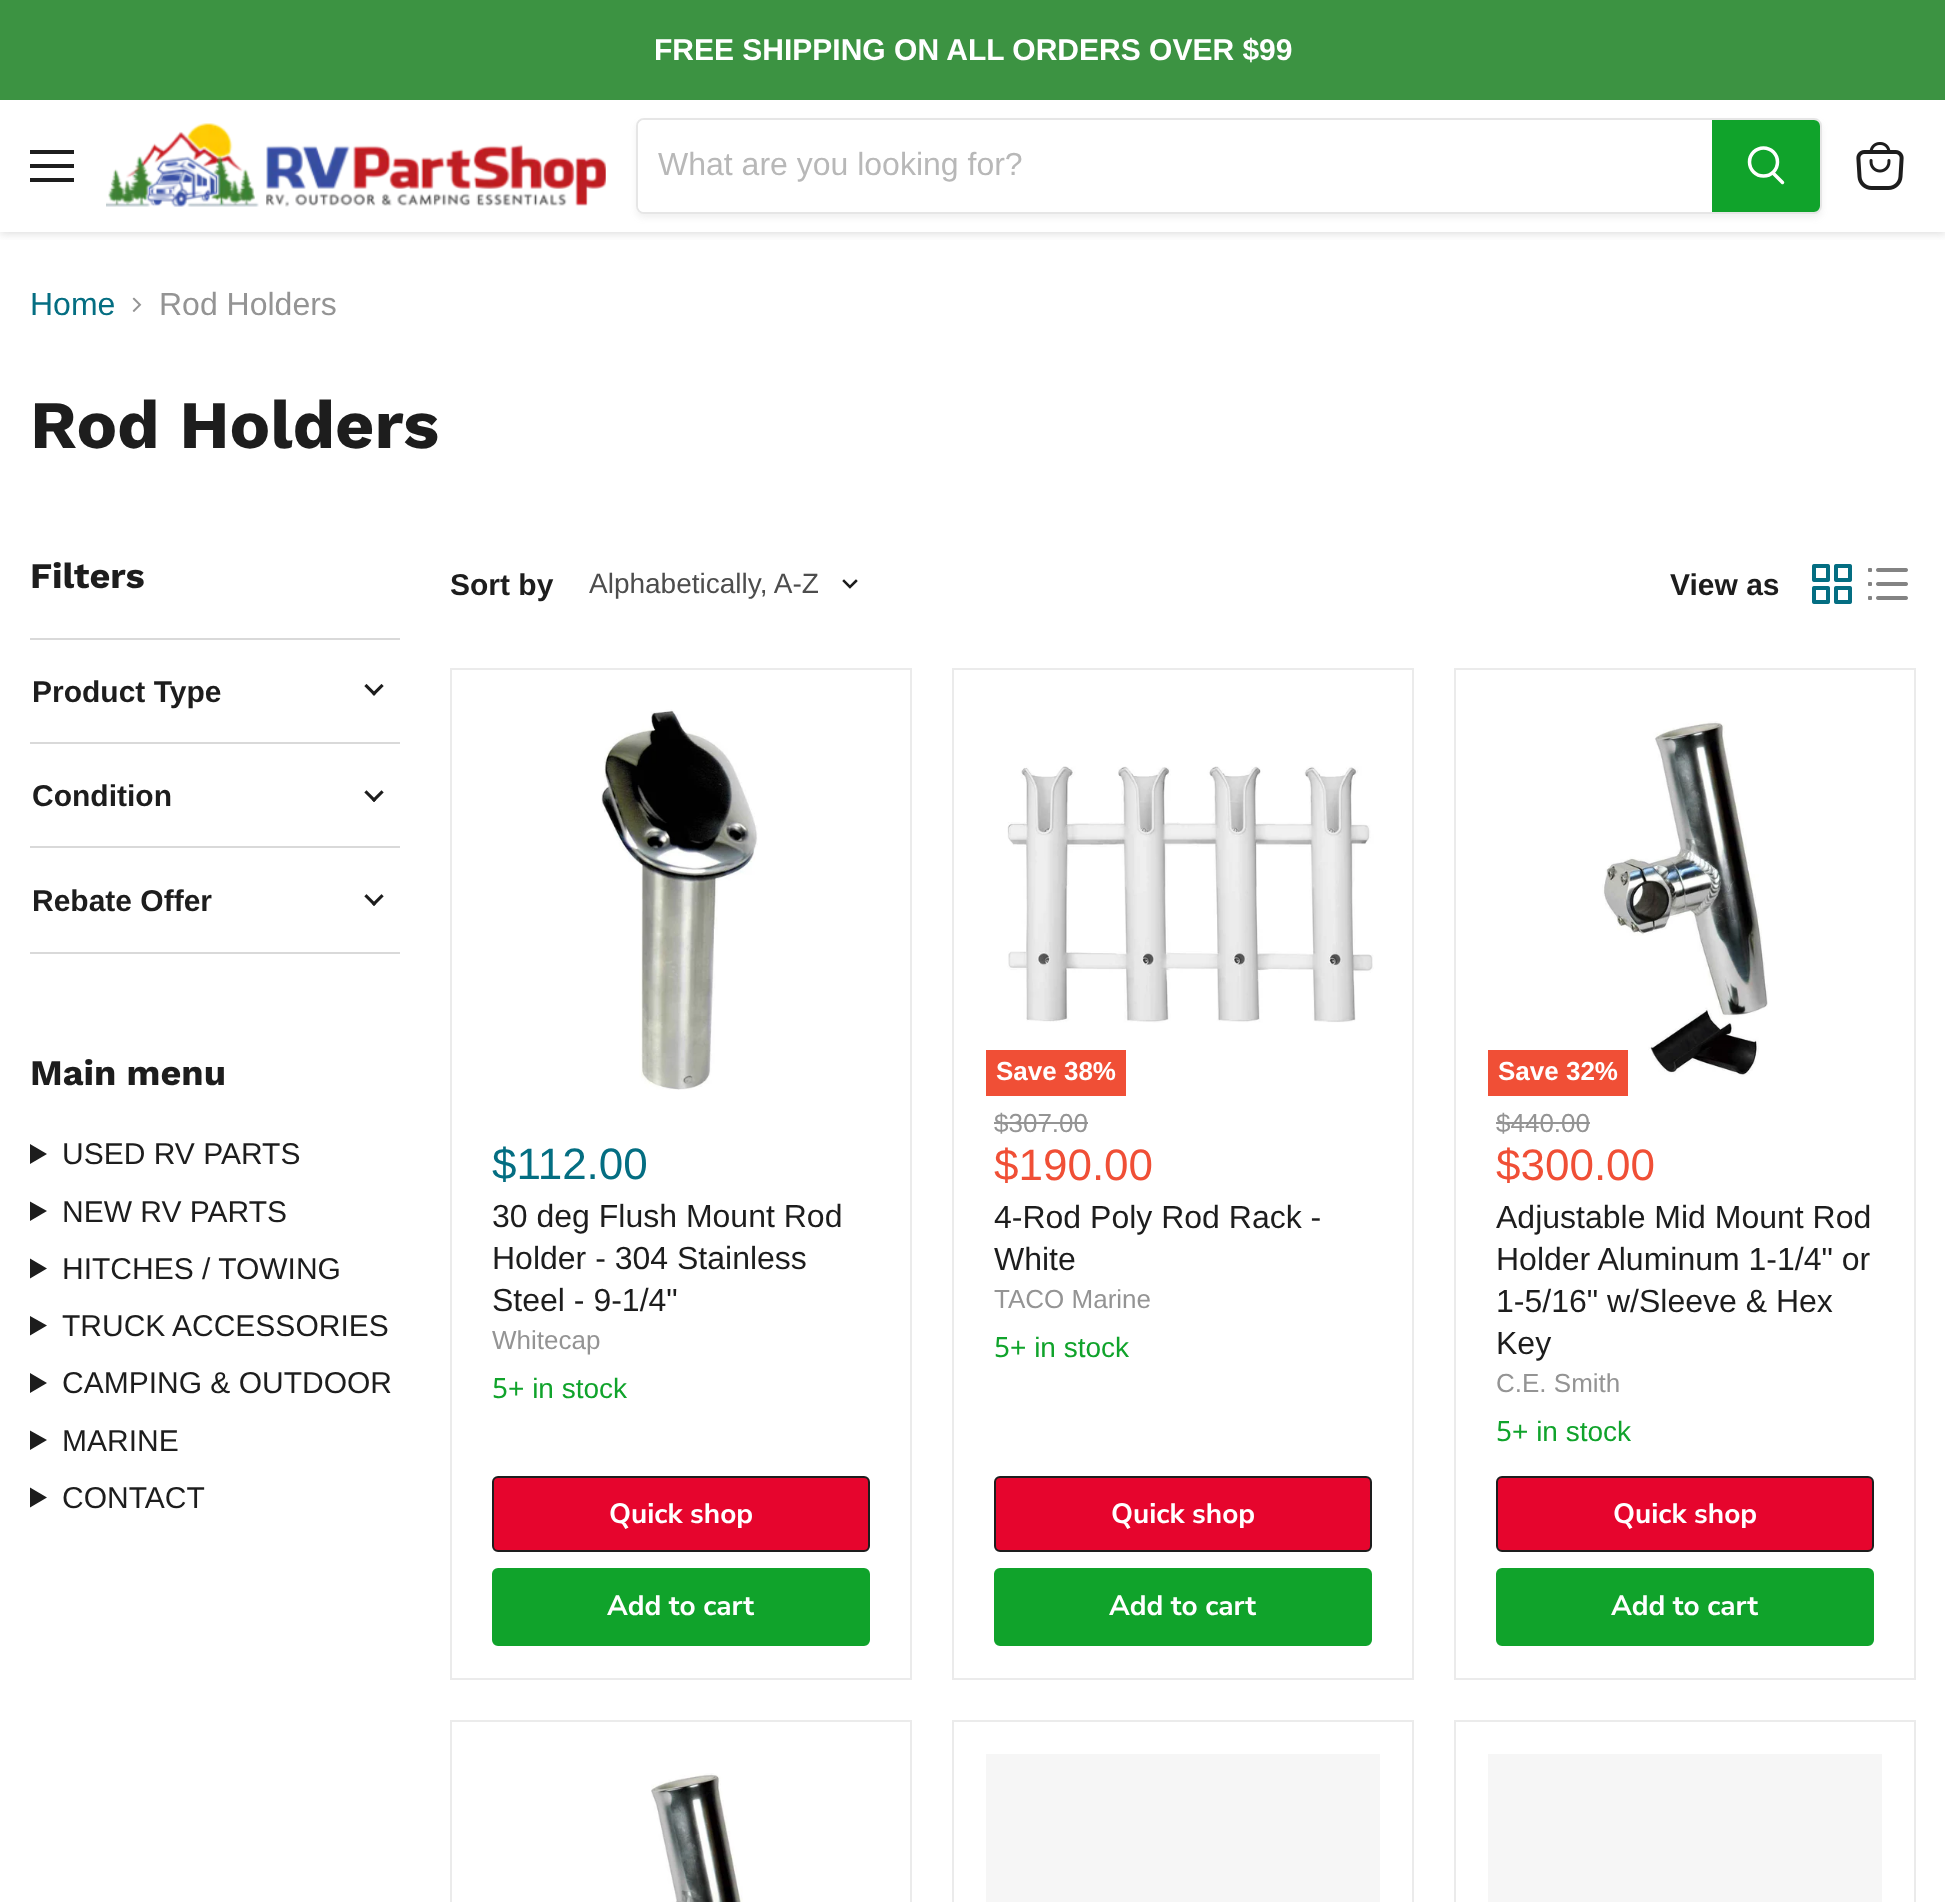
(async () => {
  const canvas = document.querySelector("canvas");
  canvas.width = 1945;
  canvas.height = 1902;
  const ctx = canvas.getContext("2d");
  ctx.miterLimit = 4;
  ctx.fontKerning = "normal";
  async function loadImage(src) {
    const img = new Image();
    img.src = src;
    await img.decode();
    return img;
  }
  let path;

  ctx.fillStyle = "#ffffff";
  ctx.fillRect(0, 0, 1945, 1902);
  ctx.save();
  ctx.beginPath();
  ctx.rect(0, 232, 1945, 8);
  ctx.clip();
  ctx.fillStyle = "rgba(128, 128, 128, 0.25)";
  ctx.filter = "blur(4px)";
  ctx.beginPath();
  ctx.rect(0, 102, 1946, 132);
  ctx.fill();
  ctx.filter = "none";
  ctx.restore();
  for (const [x, y, w, h, color] of [
    [0, 0, 1945, 100, "#3c9342"],
    [30, 150, 44, 4, "#1d1d1d"],
    [30, 164, 44, 4, "#1d1d1d"],
    [30, 178, 44, 4, "#1d1d1d"],
  ]) {
    ctx.fillStyle = color;
    ctx.fillRect(x, y, w, h);
  }
  ctx.drawImage(await loadImage("img/1.png"), 106, 123, 500, 84);
  ctx.save();
  path = new Path2D("M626 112H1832V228H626ZM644 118H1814C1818.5 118 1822 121.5 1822 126V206C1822 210.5 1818.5 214 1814 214H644C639.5 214 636 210.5 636 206V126C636 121.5 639.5 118 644 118Z");
  ctx.clip(path, "evenodd");
  ctx.fillStyle = "rgba(128, 128, 128, 0.11)";
  ctx.filter = "blur(3px)";
  ctx.beginPath();
  ctx.roundRect(636, 122, 1186, 96, 8);
  ctx.fill();
  ctx.filter = "none";
  ctx.restore();
  ctx.beginPath();
  ctx.roundRect(637, 119, 1184, 94, 7);
  ctx.strokeStyle = "rgba(128, 128, 128, 0.2)";
  ctx.lineWidth = 2;
  ctx.stroke();
  ctx.fillStyle = "#ffffff";
  ctx.beginPath();
  ctx.roundRect(638, 120, 1074, 92, [6, 0, 0, 6]);
  ctx.fill();
  ctx.fillStyle = "#10a32b";
  ctx.beginPath();
  ctx.roundRect(1713, 121, 106, 90, [0, 5, 5, 0]);
  ctx.fill();
  ctx.strokeStyle = "#10a32b";
  ctx.stroke();
  path = new Path2D("M1782.5 182.5L1773 173");
  ctx.strokeStyle = "#ffffff";
  ctx.lineWidth = 3.5;
  ctx.lineCap = "round";
  ctx.stroke(path);
  ctx.beginPath();
  ctx.arc(1763.5, 162, 14, 0, Math.PI * 2);
  ctx.stroke();
  ctx.drawImage(await loadImage("img/2.png"), 1856, 142, 48, 48);
  ctx.drawImage(await loadImage("img/3.png"), 132, 297, 10, 15);
  ctx.fillStyle = "#d9d9d9";
  ctx.fillRect(30, 638, 370, 2);
  ctx.drawImage(await loadImage("img/4.png"), 364, 684, 20, 12);
  ctx.fillRect(30, 742, 370, 2);
  ctx.drawImage(await loadImage("img/5.png"), 364, 790, 20, 12);
  ctx.fillRect(30, 846, 370, 2);
  ctx.fillRect(30, 952, 370, 2);
  ctx.drawImage(await loadImage("img/6.png"), 364, 894, 20, 12);
  ctx.fillStyle = "#1d1d1d";
  path = new Path2D("M30 1144L47 1154L30 1164Z");
  ctx.fill(path);
  path = new Path2D("M30 1201.5L47 1211L30 1221Z");
  ctx.fill(path);
  path = new Path2D("M30 1258.5L47 1268.5L30 1278.5Z");
  ctx.fill(path);
  path = new Path2D("M30 1316L47 1325.5L30 1335.5Z");
  ctx.fill(path);
  path = new Path2D("M30 1373L47 1383L30 1393Z");
  ctx.fill(path);
  path = new Path2D("M30 1430.5L47 1440L30 1450Z");
  ctx.fill(path);
  path = new Path2D("M30 1487.5L47 1497.5L30 1507.5Z");
  ctx.fill(path);
  path = new Path2D("M850 587L856 581M850 587L844 581");
  ctx.strokeStyle = "#1d1d1d";
  ctx.lineWidth = 2.5;
  ctx.lineCap = "square";
  ctx.stroke(path);
  ctx.drawImage(await loadImage("img/7.png"), 1812, 564, 40, 40);
  ctx.drawImage(await loadImage("img/8.png"), 1868, 568, 40, 32);
  ctx.strokeStyle = "#ebebeb";
  ctx.lineWidth = 2;
  ctx.strokeRect(451, 669, 460, 1010);
  ctx.drawImage(await loadImage("img/9.png"), 601, 709, 157, 381);
  ctx.fillStyle = "#e6052d";
  ctx.beginPath();
  ctx.roundRect(493, 1477, 376, 74, 5);
  ctx.fill();
  ctx.strokeStyle = "#1d1d1d";
  ctx.stroke();
  ctx.fillStyle = "#10a32b";
  ctx.beginPath();
  ctx.roundRect(493, 1569, 376, 76, 5);
  ctx.fill();
  ctx.strokeStyle = "#10a32b";
  ctx.stroke();
  ctx.strokeStyle = "#ebebeb";
  ctx.strokeRect(953, 669, 460, 1010);
  ctx.drawImage(await loadImage("img/10.png"), 1007, 766, 367, 257);
  ctx.fillStyle = "#f04f36";
  ctx.fillRect(986, 1050, 140, 46);
  ctx.fillStyle = "#949494";
  ctx.fillRect(994, 1122, 94, 2);
  ctx.fillStyle = "#e6052d";
  ctx.beginPath();
  ctx.roundRect(995, 1477, 376, 74, 5);
  ctx.fill();
  ctx.strokeStyle = "#1d1d1d";
  ctx.stroke();
  ctx.fillStyle = "#10a32b";
  ctx.beginPath();
  ctx.roundRect(995, 1569, 376, 76, 5);
  ctx.fill();
  ctx.strokeStyle = "#10a32b";
  ctx.stroke();
  ctx.strokeStyle = "#ebebeb";
  ctx.strokeRect(1455, 669, 460, 1010);
  ctx.drawImage(await loadImage("img/11.png"), 1602, 721, 166, 356);
  ctx.fillStyle = "#f04f36";
  ctx.fillRect(1488, 1050, 140, 46);
  ctx.fillStyle = "#949494";
  ctx.fillRect(1496, 1122, 94, 2);
  ctx.fillStyle = "#e6052d";
  ctx.beginPath();
  ctx.roundRect(1497, 1477, 376, 74, 5);
  ctx.fill();
  ctx.strokeStyle = "#1d1d1d";
  ctx.stroke();
  ctx.fillStyle = "#10a32b";
  ctx.beginPath();
  ctx.roundRect(1497, 1569, 376, 76, 5);
  ctx.fill();
  ctx.strokeStyle = "#10a32b";
  ctx.stroke();
  ctx.strokeStyle = "#ebebeb";
  ctx.strokeRect(451, 1721, 460, 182);
  ctx.drawImage(await loadImage("img/12.png"), 651, 1773, 92, 129);
  ctx.strokeRect(953, 1721, 460, 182);
  ctx.fillStyle = "#f6f6f6";
  ctx.fillRect(986, 1754, 394, 148);
  ctx.strokeRect(1455, 1721, 460, 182);
  ctx.fillRect(1488, 1754, 394, 148);
  ctx.font = "bold 30px Liberation Sans";
  ctx.fillStyle = "#ffffff";
  ctx.fillText("FREE SHIPPING ON ALL ORDERS OVER $99", 654, 60);
  ctx.font = "32px Liberation Sans";
  ctx.fillStyle = "#b8b8b8";
  ctx.fillText("What are you looking for?", 658, 175);
  ctx.fillStyle = "#046e82";
  ctx.fillText("Home", 30, 315);
  ctx.fillStyle = "#949494";
  ctx.fillText("Rod Holders", 159, 315);
  ctx.font = "bold 68px Work Sans";
  ctx.fillStyle = "#1d1d1d";
  ctx.fillText("Rod Holders", 30, 448);
  ctx.font = "bold 36px Work Sans";
  ctx.fillText("Filters", 30, 588);
  ctx.font = "bold 30px Liberation Sans";
  for (const [text, x, y] of [
    ["Product Type", 32, 702],
    ["Condition", 32, 806],
    ["Rebate Offer", 32, 911],
  ]) {
    ctx.fillText(text, x, y);
  }
  ctx.font = "bold 36px Work Sans";
  ctx.fillText("Main menu", 30, 1085);
  ctx.font = "30px Liberation Sans";
  for (const [text, x, y] of [
    ["USED RV PARTS", 62, 1164],
    ["NEW RV PARTS", 62, 1222],
    ["HITCHES / TOWING", 62, 1279],
    ["TRUCK ACCESSORIES", 62, 1336],
    ["CAMPING & OUTDOOR", 62, 1393],
    ["MARINE", 62, 1451],
    ["CONTACT", 62, 1508],
  ]) {
    ctx.fillText(text, x, y);
  }
  ctx.font = "bold 30px Liberation Sans";
  ctx.fillText("Sort by", 450, 595);
  ctx.font = "28px Liberation Sans";
  ctx.fillStyle = "#4d4d4d";
  ctx.fillText("Alphabetically, A-Z", 589, 593);
  ctx.font = "bold 30px Liberation Sans";
  ctx.fillStyle = "#1d1d1d";
  ctx.fillText("View as", 1670, 595);
  ctx.font = "44px Liberation Sans";
  ctx.fillStyle = "#046e82";
  ctx.fillText("$112.00", 492, 1179);
  ctx.font = "32px Liberation Sans";
  ctx.fillStyle = "#1d1d1d";
  for (const [text, x, y] of [
    ["30 deg Flush Mount Rod", 492, 1227],
    ["Holder - 304 Stainless", 492, 1269],
    ["Steel - 9-1/4\"", 492, 1311],
  ]) {
    ctx.fillText(text, x, y);
  }
  ctx.font = "26px Liberation Sans";
  ctx.fillStyle = "#949494";
  ctx.fillText("Whitecap", 492, 1349);
  ctx.font = "28px Noto Sans";
  ctx.fillStyle = "#10a32b";
  ctx.fillText("5", 492, 1398);
  ctx.font = "28px Liberation Sans";
  ctx.fillText("+ in stock", 508, 1398);
  ctx.font = "bold 28px Nunito Sans";
  ctx.fillStyle = "#ffffff";
  ctx.fillText("Quick shop", 609, 1523);
  ctx.fillText("Add to cart", 607, 1615);
  ctx.font = "bold 26px Liberation Sans";
  ctx.fillText("Save 38%", 996, 1080);
  ctx.font = "26px Liberation Sans";
  ctx.fillStyle = "#949494";
  ctx.fillText("$307.00", 994, 1132);
  ctx.font = "44px Liberation Sans";
  ctx.fillStyle = "#f04f36";
  ctx.fillText("$190.00", 994, 1180);
  ctx.font = "32px Liberation Sans";
  ctx.fillStyle = "#1d1d1d";
  ctx.fillText("4-Rod Poly Rod Rack -", 994, 1228);
  ctx.fillText("White", 994, 1270);
  ctx.font = "26px Liberation Sans";
  ctx.fillStyle = "#949494";
  ctx.fillText("TACO Marine", 994, 1308);
  ctx.font = "28px Noto Sans";
  ctx.fillStyle = "#10a32b";
  ctx.fillText("5", 994, 1357);
  ctx.font = "28px Liberation Sans";
  ctx.fillText("+ in stock", 1010, 1357);
  ctx.font = "bold 28px Nunito Sans";
  ctx.fillStyle = "#ffffff";
  ctx.fillText("Quick shop", 1111, 1523);
  ctx.fillText("Add to cart", 1109, 1615);
  ctx.font = "bold 26px Liberation Sans";
  ctx.fillText("Save 32%", 1498, 1080);
  ctx.font = "26px Liberation Sans";
  ctx.fillStyle = "#949494";
  ctx.fillText("$440.00", 1496, 1132);
  ctx.font = "44px Liberation Sans";
  ctx.fillStyle = "#f04f36";
  ctx.fillText("$300.00", 1496, 1180);
  ctx.font = "32px Liberation Sans";
  ctx.fillStyle = "#1d1d1d";
  for (const [text, x, y] of [
    ["Adjustable Mid Mount Rod", 1496, 1228],
    ["Holder Aluminum 1-1/4\" or", 1496, 1270],
    ["1-5/16\" w/Sleeve & Hex", 1496, 1312],
    ["Key", 1496, 1354],
  ]) {
    ctx.fillText(text, x, y);
  }
  ctx.font = "26px Liberation Sans";
  ctx.fillStyle = "#949494";
  ctx.fillText("C.E. Smith", 1496, 1392);
  ctx.font = "28px Noto Sans";
  ctx.fillStyle = "#10a32b";
  ctx.fillText("5", 1496, 1441);
  ctx.font = "28px Liberation Sans";
  ctx.fillText("+ in stock", 1512, 1441);
  ctx.font = "bold 28px Nunito Sans";
  ctx.fillStyle = "#ffffff";
  ctx.fillText("Quick shop", 1613, 1523);
  ctx.fillText("Add to cart", 1611, 1615);
})();
